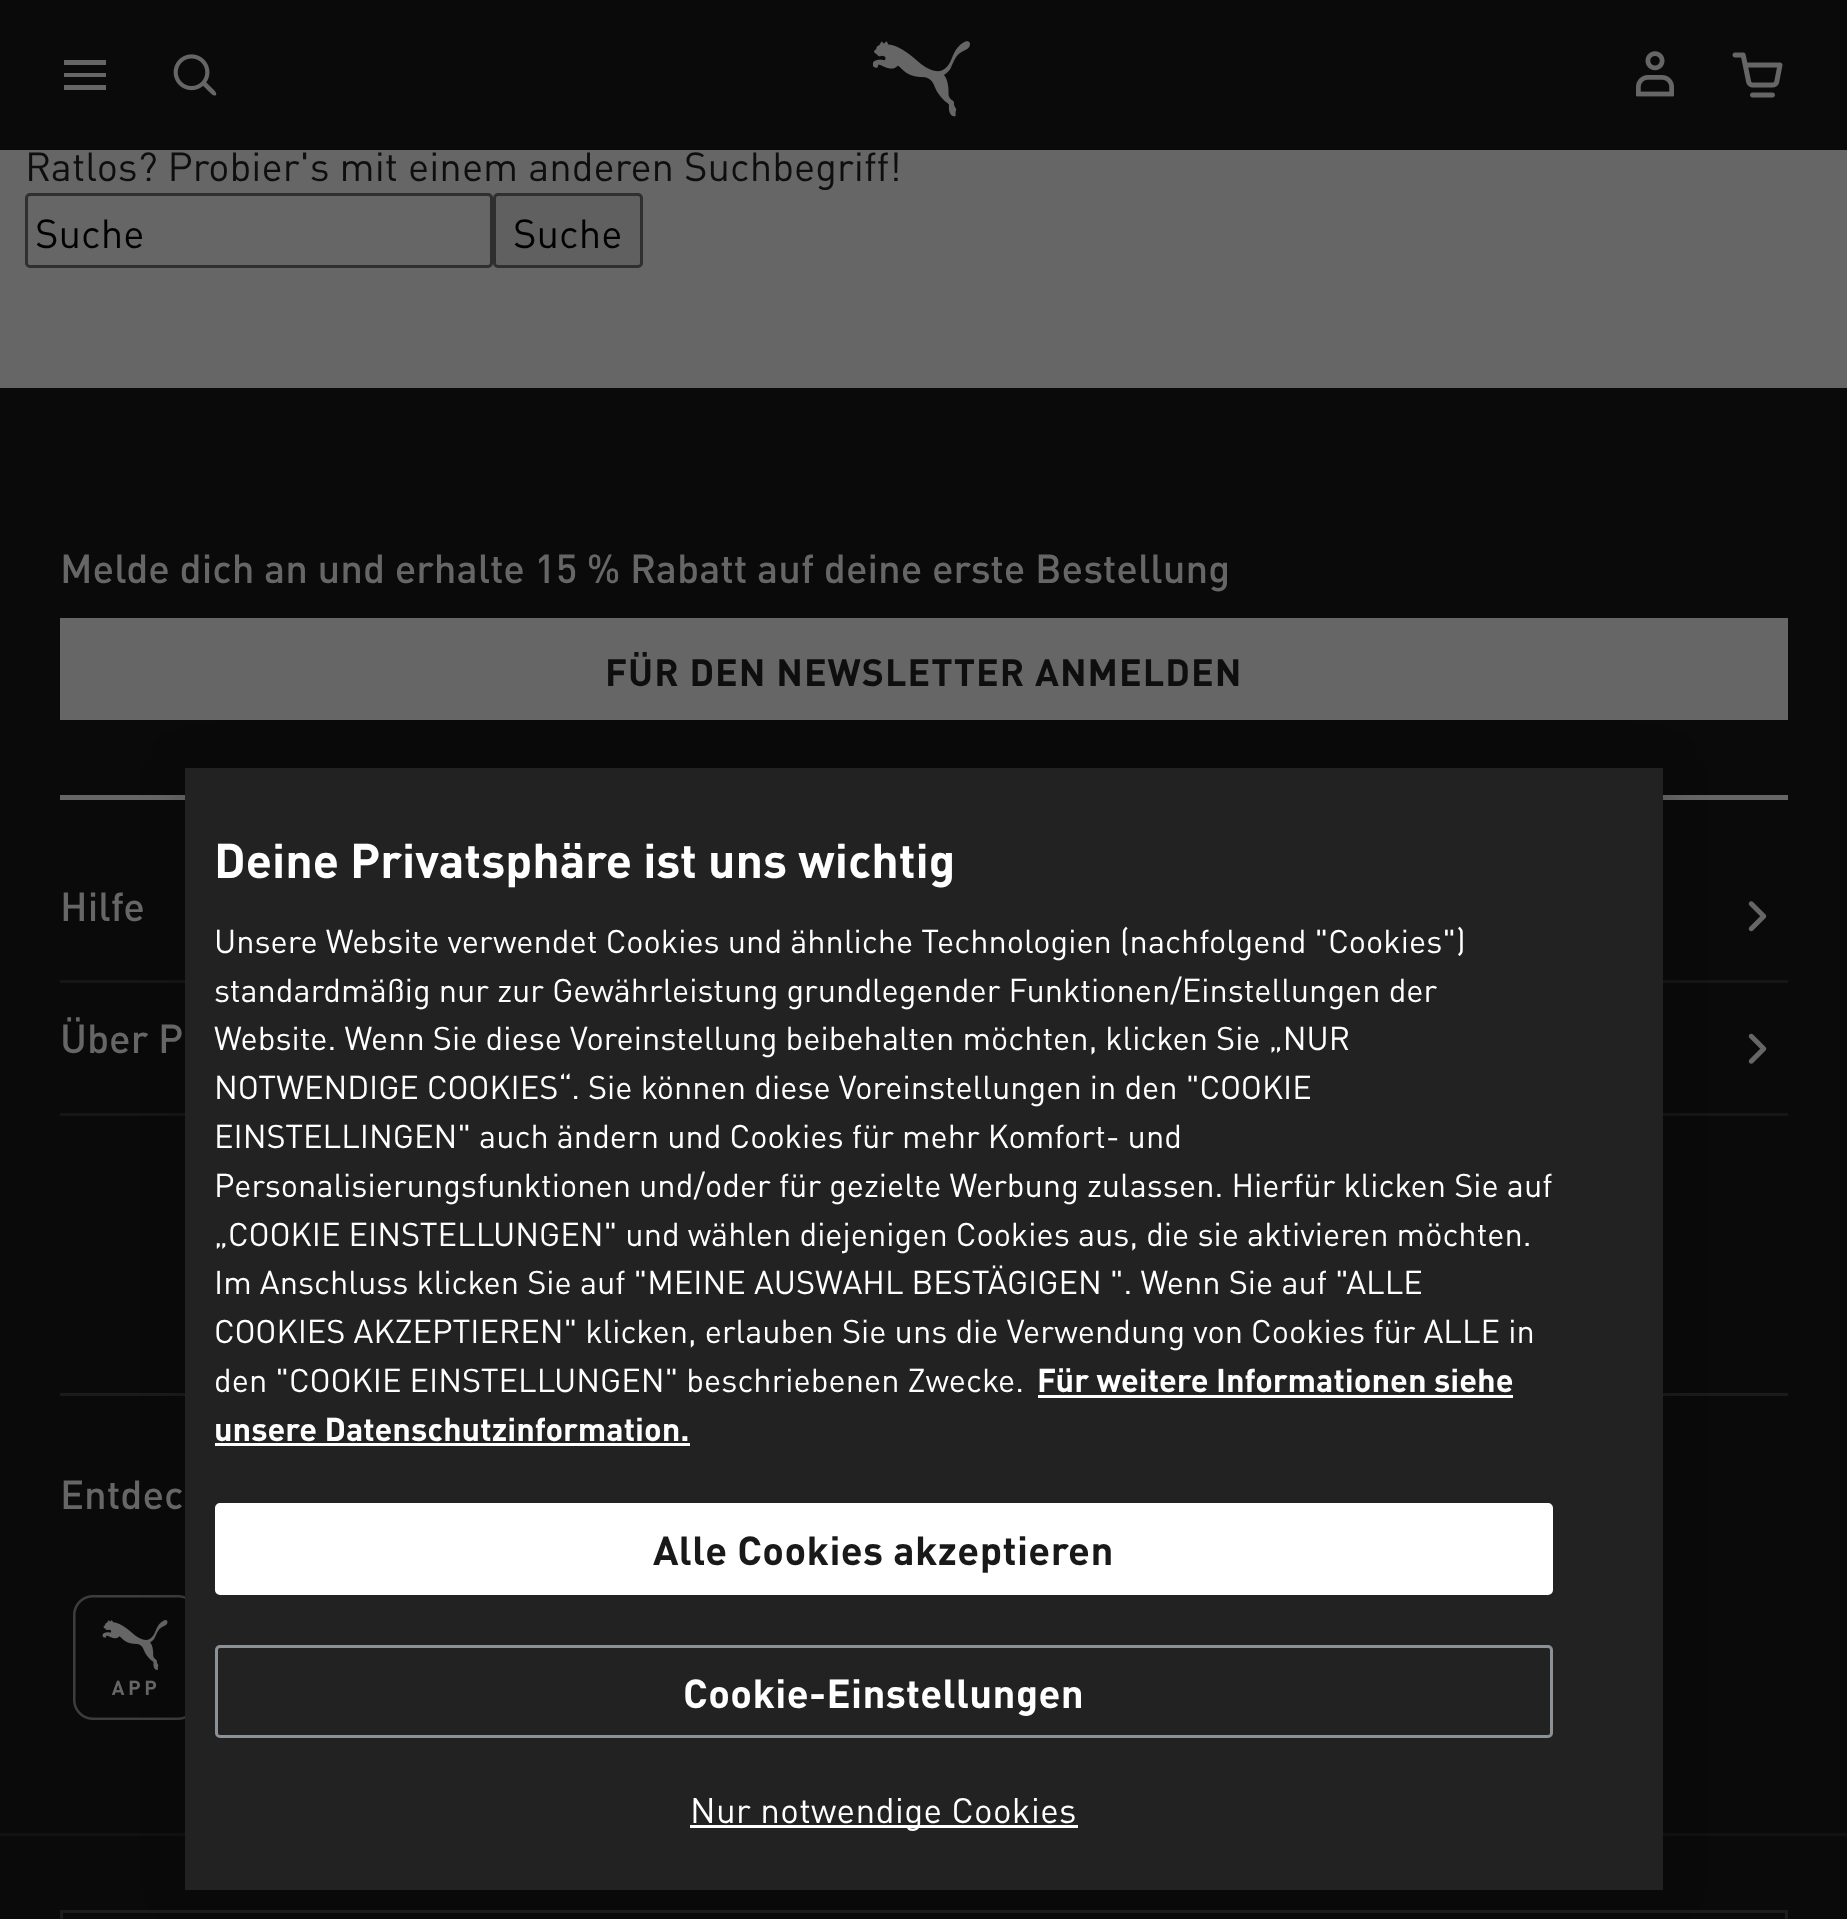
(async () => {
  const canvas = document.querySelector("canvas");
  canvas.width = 1847;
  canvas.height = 1919;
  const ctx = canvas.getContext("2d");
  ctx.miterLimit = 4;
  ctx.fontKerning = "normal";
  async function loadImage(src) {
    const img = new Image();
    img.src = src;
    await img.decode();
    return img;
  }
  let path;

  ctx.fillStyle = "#666666";
  ctx.fillRect(0, 0, 1847, 1919);
  ctx.fillStyle = "#0a0a0a";
  ctx.fillRect(0, 0, 1847, 150);
  ctx.fillStyle = "#666666";
  path = new Path2D("M64 65V60H106V65ZM64 77H106V73H64ZM64 90H106V85H64Z");
  ctx.fill(path);
  ctx.drawImage(await loadImage("img/1.png"), 173, 54, 44, 42);
  ctx.drawImage(await loadImage("img/2.png"), 873, 41, 97, 76);
  ctx.drawImage(await loadImage("img/3.png"), 1636, 51, 38, 46);
  ctx.drawImage(await loadImage("img/4.png"), 1732, 52, 51, 46);
  ctx.beginPath();
  ctx.roundRect(26.5, 194.5, 465, 72, 3.5);
  ctx.strokeStyle = "#2f2f2f";
  ctx.lineWidth = 3;
  ctx.stroke();
  ctx.fillStyle = "#606060";
  ctx.beginPath();
  ctx.roundRect(494.5, 194.5, 147, 72, 3.5);
  ctx.fill();
  ctx.stroke();
  for (const [x, y, w, h, color] of [
    [0, 388, 1847, 1445, "#0a0a0a"],
    [60, 618, 1728, 102, "#666666"],
    [60, 795, 1728, 5, "#666666"],
    [60, 980, 1728, 3, "#161616"],
  ]) {
    ctx.fillStyle = color;
    ctx.fillRect(x, y, w, h);
  }
  ctx.drawImage(await loadImage("img/5.png"), 1748, 901, 19, 31);
  ctx.fillRect(60, 1113, 1728, 3);
  ctx.drawImage(await loadImage("img/6.png"), 1748, 1033, 19, 31);
  ctx.fillStyle = "#1b1b1b";
  ctx.fillRect(60, 1393, 1728, 3);
  ctx.drawImage(await loadImage("img/7.png"), 73, 1595, 112, 125);
  ctx.fillStyle = "#0a0a0a";
  ctx.fillRect(0, 1836, 1847, 83);
  ctx.fillStyle = "#121212";
  ctx.fillRect(0, 1833, 1847, 3);
  ctx.strokeStyle = "#1c1c1c";
  ctx.strokeRect(61.5, 1911.5, 1725, 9);
  ctx.fillStyle = "rgba(0, 0, 0, 0.2)";
  ctx.filter = "blur(22.5px)";
  ctx.beginPath();
  ctx.rect(185, 768, 1478, 1122);
  ctx.fill();
  ctx.filter = "none";
  for (const [x, y, w, h, color] of [
    [185, 768, 1478, 1122, "#222222"],
    [1038, 1395, 475, 3, "#ffffff"],
    [215, 1443, 475, 3, "#ffffff"],
  ]) {
    ctx.fillStyle = color;
    ctx.fillRect(x, y, w, h);
  }
  ctx.beginPath();
  ctx.roundRect(216.5, 1504.5, 1335, 89, 3.5);
  ctx.fill();
  ctx.strokeStyle = "#ffffff";
  ctx.stroke();
  ctx.beginPath();
  ctx.roundRect(216.5, 1646.5, 1335, 90, 3.5);
  ctx.strokeStyle = "#8c9198";
  ctx.stroke();
  ctx.fillRect(690, 1825, 388, 3);
  ctx.font = "40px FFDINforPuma";
  ctx.fillStyle = "#0e0e0e";
  ctx.fillText("Ratlos? Probier's mit einem anderen Suchbegriff!", 25, 181);
  ctx.fillStyle = "#000000";
  ctx.fillText("Suche", 35, 248);
  ctx.fillText("Suche", 513, 248);
  ctx.font = "500 40px FFDINforPuma";
  ctx.fillStyle = "#666666";
  ctx.fillText("Melde dich an und erhalte 15 % Rabatt auf deine erste Bestellung", 60, 583);
  ctx.letterSpacing = "1px";
  ctx.font = "bold 37.5px FFDINforPuma";
  ctx.fillStyle = "#0e0e0e";
  ctx.fillText("FÜR DEN NEWSLETTER ANMELDEN", 605, 686);
  ctx.letterSpacing = "0px";
  ctx.font = "500 40px FFDINforPuma";
  ctx.fillStyle = "#666666";
  for (const [text, x, y] of [
    ["Hilfe", 60, 921],
    ["Über P", 60, 1053],
    ["Entdec", 60, 1509],
  ]) {
    ctx.fillText(text, x, y);
  }
  ctx.font = "bold 48px FFDINforPuma";
  ctx.fillStyle = "#ffffff";
  ctx.fillText("Deine Privatsphäre ist uns wichtig", 214, 878);
  ctx.font = "32.5px FFDINforPuma";
  for (const [text, x, y] of [
    ["Unsere Website verwendet Cookies und ähnliche Technologien (nachfolgend \"Cookies\")", 214, 953],
    ["standardmäßig nur zur Gewährleistung grundlegender Funktionen/Einstellungen der", 214, 1002],
    ["Website. Wenn Sie diese Voreinstellung beibehalten möchten, klicken Sie „NUR", 214, 1050],
    ["NOTWENDIGE COOKIES“. Sie können diese Voreinstellungen in den \"COOKIE", 214, 1099],
    ["EINSTELLINGEN\" auch ändern und Cookies für mehr Komfort- und", 214, 1148],
    ["Personalisierungsfunktionen und/oder für gezielte Werbung zulassen. Hierfür klicken Sie auf", 214, 1197],
    ["„COOKIE EINSTELLUNGEN\" und wählen diejenigen Cookies aus, die sie aktivieren möchten.", 214, 1246],
    ["Im Anschluss klicken Sie auf \"MEINE AUSWAHL BESTÄGIGEN \". Wenn Sie auf \"ALLE", 214, 1294],
    ["COOKIES AKZEPTIEREN\" klicken, erlauben Sie uns die Verwendung von Cookies für ALLE in", 214, 1343],
    ["den \"COOKIE EINSTELLUNGEN\" beschriebenen Zwecke.", 214, 1392],
  ]) {
    ctx.fillText(text, x, y);
  }
  ctx.font = "bold 32.5px FFDINforPuma";
  ctx.fillText("Für weitere Informationen siehe", 1037, 1392);
  ctx.fillText("unsere Datenschutzinformation.", 214, 1441);
  ctx.letterSpacing = "0.4px";
  ctx.font = "bold 40px FFDINforPuma";
  ctx.fillStyle = "#191919";
  ctx.fillText("Alle Cookies akzeptieren", 653, 1565);
  ctx.fillStyle = "#ffffff";
  ctx.fillText("Cookie-Einstellungen", 683, 1708);
  ctx.letterSpacing = "0.35px";
  ctx.font = "35px FFDINforPuma";
  ctx.fillText("Nur notwendige Cookies", 690, 1823);
})();
